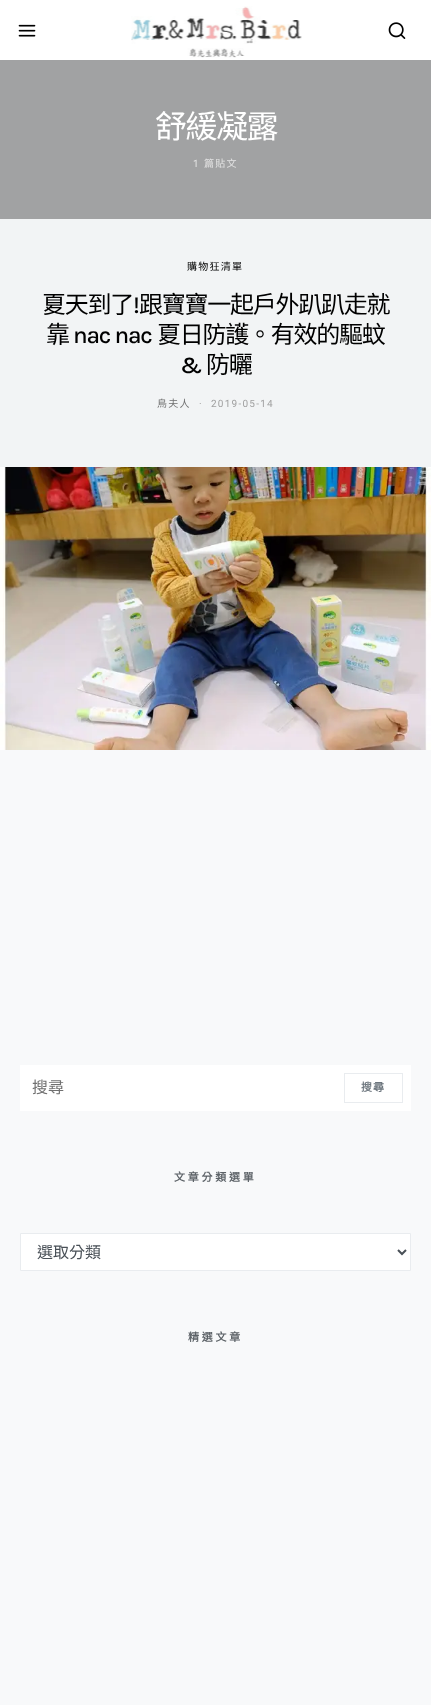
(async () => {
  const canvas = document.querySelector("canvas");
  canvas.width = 431;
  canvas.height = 1705;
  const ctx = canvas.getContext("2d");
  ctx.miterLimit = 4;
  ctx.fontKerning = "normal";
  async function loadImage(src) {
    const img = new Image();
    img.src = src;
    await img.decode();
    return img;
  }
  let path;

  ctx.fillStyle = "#f8f9fa";
  ctx.fillRect(0, 0, 431, 1705);
  ctx.fillStyle = "#ffffff";
  ctx.fillRect(0, 0, 431, 60);
  ctx.drawImage(await loadImage("img/1.png"), 18, 24, 18, 13);
  ctx.drawImage(await loadImage("img/2.png"), 131, 6, 171, 52);
  ctx.drawImage(await loadImage("img/3.png"), 388, 22, 18, 17);
  ctx.fillStyle = "#a1a2a3";
  ctx.fillRect(0, 60, 431, 159);
  ctx.fillStyle = "#f2f4f5";
  ctx.fillRect(0, 219, 431, 248);
  ctx.drawImage(await loadImage("img/4.png"), 0, 467, 431, 283);
  ctx.fillStyle = "#ffffff";
  ctx.fillRect(20, 1065, 391, 46);
  ctx.strokeStyle = "#e9ecef";
  ctx.strokeRect(344.5, 1073.5, 58, 29);
  ctx.beginPath();
  ctx.rect(20.5, 1233.5, 390, 37);
  ctx.fill();
  ctx.stroke();
  path = new Path2D("M398 1250L402 1254L406 1250");
  ctx.strokeStyle = "#495057";
  ctx.lineWidth = 2;
  ctx.stroke(path);
  ctx.letterSpacing = "-1.5px";
  ctx.font = "32px Noto Sans CJK TC";
  ctx.fillText("舒緩凝露", 155, 138);
  ctx.letterSpacing = "1.25px";
  ctx.font = "10px Roboto";
  ctx.fillStyle = "#e3e3e3";
  ctx.fillText("1", 193, 167);
  ctx.font = "10px Noto Sans CJK TC";
  ctx.fillText("篇貼文", 204, 167);
  ctx.fillStyle = "#000000";
  ctx.fillText("購物狂清單", 187, 270);
  ctx.letterSpacing = "-1.25px";
  ctx.font = "24px Noto Sans CJK TC";
  ctx.fillText("夏天到了", 42, 313);
  ctx.font = "500 24px Karla";
  ctx.fillText("!", 133, 313);
  ctx.font = "24px Noto Sans CJK TC";
  ctx.fillText("跟寶寶一起戶外趴趴走就", 139, 313);
  ctx.fillText("靠", 46, 343);
  ctx.font = "500 24px Karla";
  ctx.fillText("nac nac", 73, 343);
  ctx.font = "24px Noto Sans CJK TC";
  ctx.fillText("夏日防護。有效的驅蚊", 157, 343);
  ctx.font = "500 24px Karla";
  ctx.fillText("&", 180, 373);
  ctx.font = "24px Noto Sans CJK TC";
  ctx.fillText("防曬", 206, 373);
  ctx.letterSpacing = "1.25px";
  ctx.font = "10px Noto Sans CJK TC";
  ctx.fillStyle = "#707070";
  ctx.fillText("鳥夫人", 157, 407);
  ctx.font = "10px Roboto";
  ctx.fillStyle = "#a0a0a0";
  ctx.fillText("·", 199, 407);
  ctx.fillText("2019-05-14", 211, 407);
  ctx.letterSpacing = "0px";
  ctx.font = "16px Noto Sans CJK TC";
  ctx.fillStyle = "#707070";
  ctx.fillText("搜尋", 32, 1093);
  ctx.letterSpacing = "1px";
  ctx.font = "bold 11px Noto Sans CJK TC";
  ctx.fillStyle = "#6c757d";
  ctx.fillText("搜尋", 361, 1091);
  ctx.letterSpacing = "2.75px";
  ctx.fillStyle = "#5b6166";
  ctx.fillText("文章分類選單", 174, 1181);
  ctx.letterSpacing = "0px";
  ctx.font = "16px Noto Sans CJK TC";
  ctx.fillStyle = "#495057";
  ctx.fillText("選取分類", 37, 1258);
  ctx.letterSpacing = "2.75px";
  ctx.font = "bold 11px Noto Sans CJK TC";
  ctx.fillStyle = "#5b6166";
  ctx.fillText("精選文章", 188, 1341);
})();
